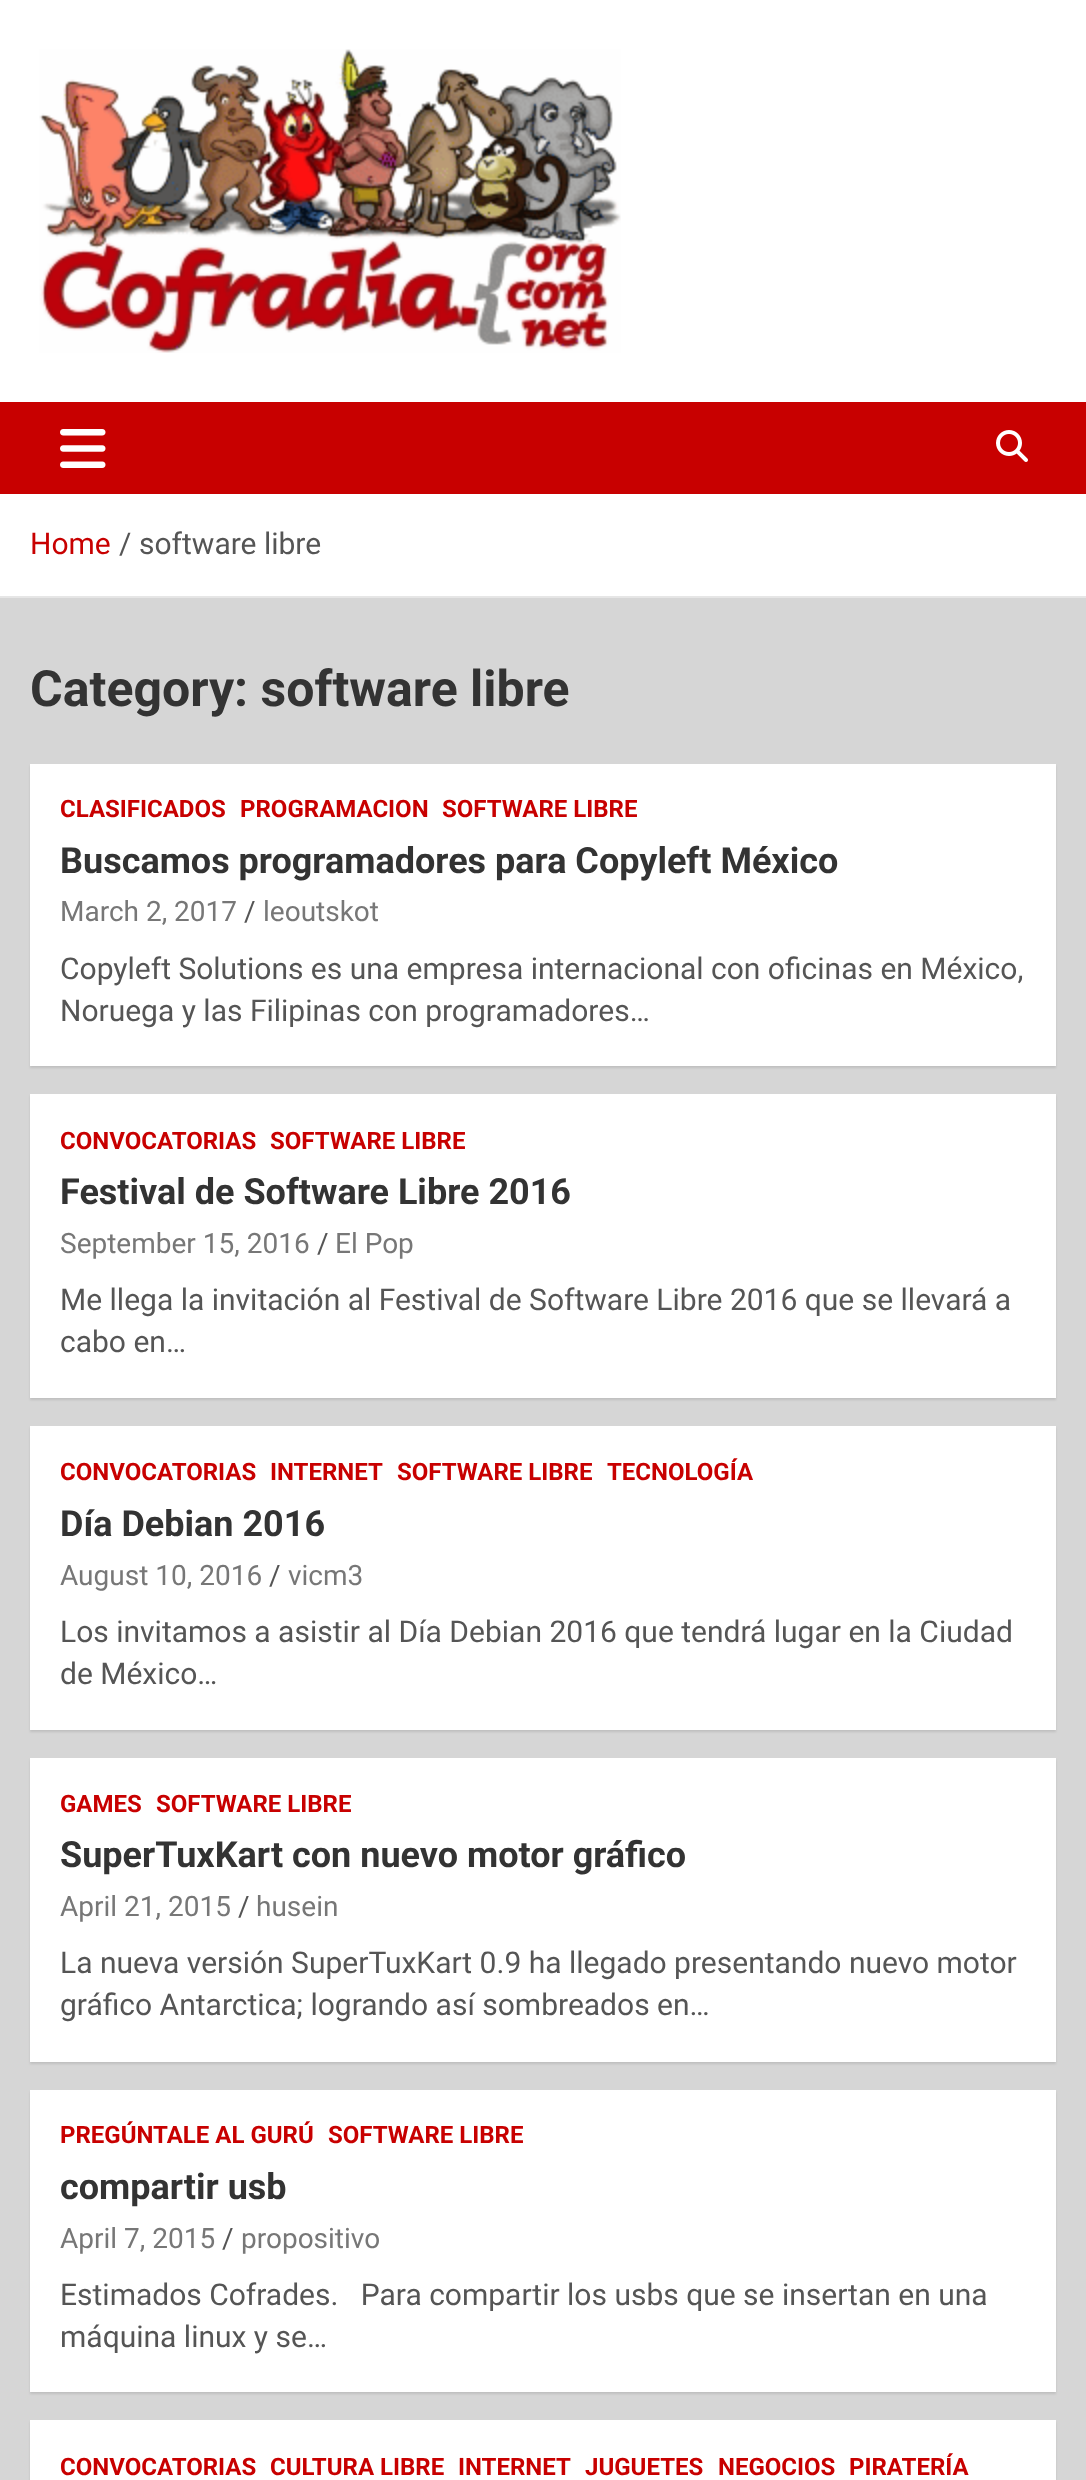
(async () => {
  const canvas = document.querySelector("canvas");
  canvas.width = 1086;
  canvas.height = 2480;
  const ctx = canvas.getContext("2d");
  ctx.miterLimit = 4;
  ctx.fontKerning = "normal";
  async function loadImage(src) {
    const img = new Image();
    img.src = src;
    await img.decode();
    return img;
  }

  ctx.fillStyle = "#d6d6d6";
  ctx.fillRect(0, 0, 1086, 2480);
  ctx.fillStyle = "#ffffff";
  ctx.fillRect(0, 0, 1086, 402);
  ctx.drawImage(await loadImage("img/1.png"), 39, 49, 582, 304);
  ctx.fillStyle = "#c80000";
  ctx.fillRect(0, 402, 1086, 92);
  ctx.drawImage(await loadImage("img/2.png"), 60, 429, 46, 39);
  ctx.drawImage(await loadImage("img/3.png"), 996, 430, 32, 32);
  ctx.fillStyle = "#ffffff";
  ctx.fillRect(0, 494, 1086, 102);
  ctx.fillStyle = "#e6e6e6";
  ctx.fillRect(0, 596, 1086, 2);
  ctx.fillStyle = "rgba(0, 0, 0, 0.1)";
  ctx.filter = "blur(1px)";
  ctx.beginPath();
  ctx.rect(30, 766, 1026, 302);
  ctx.fill();
  ctx.filter = "none";
  ctx.fillStyle = "#ffffff";
  ctx.fillRect(30, 764, 1026, 302);
  ctx.fillStyle = "rgba(0, 0, 0, 0.1)";
  ctx.filter = "blur(1px)";
  ctx.beginPath();
  ctx.rect(30, 1096, 1026, 304);
  ctx.fill();
  ctx.filter = "none";
  ctx.fillStyle = "#ffffff";
  ctx.fillRect(30, 1094, 1026, 304);
  ctx.fillStyle = "rgba(0, 0, 0, 0.1)";
  ctx.filter = "blur(1px)";
  ctx.beginPath();
  ctx.rect(30, 1428, 1026, 304);
  ctx.fill();
  ctx.filter = "none";
  ctx.fillStyle = "#ffffff";
  ctx.fillRect(30, 1426, 1026, 304);
  ctx.fillStyle = "rgba(0, 0, 0, 0.1)";
  ctx.filter = "blur(1px)";
  ctx.beginPath();
  ctx.rect(30, 1760, 1026, 304);
  ctx.fill();
  ctx.filter = "none";
  ctx.fillStyle = "#ffffff";
  ctx.fillRect(30, 1758, 1026, 304);
  ctx.fillStyle = "rgba(0, 0, 0, 0.1)";
  ctx.filter = "blur(1px)";
  ctx.beginPath();
  ctx.rect(30, 2092, 1026, 302);
  ctx.fill();
  ctx.filter = "none";
  ctx.fillStyle = "#ffffff";
  ctx.fillRect(30, 2090, 1026, 302);
  ctx.fillStyle = "rgba(0, 0, 0, 0.1)";
  ctx.filter = "blur(1px)";
  ctx.beginPath();
  ctx.rect(30, 2422, 1026, 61);
  ctx.fill();
  ctx.filter = "none";
  ctx.fillStyle = "#ffffff";
  ctx.fillRect(30, 2420, 1026, 60);
  ctx.font = "30px Roboto";
  ctx.fillStyle = "#c80000";
  ctx.fillText("Home", 30, 554);
  ctx.fillStyle = "#555555";
  ctx.fillText("/", 119, 554);
  ctx.fillText("software libre", 139, 554);
  ctx.font = "bold 50px Roboto";
  ctx.fillStyle = "#333333";
  ctx.fillText("Category: software libre", 30, 706);
  ctx.font = "bold 24px Roboto";
  ctx.fillStyle = "#c80000";
  for (const [text, x, y] of [
    ["CLASIFICADOS", 60, 817],
    ["PROGRAMACION", 240, 817],
    ["SOFTWARE LIBRE", 442, 817],
  ]) {
    ctx.fillText(text, x, y);
  }
  ctx.font = "bold 36px Roboto";
  ctx.fillStyle = "#333333";
  ctx.fillText("Buscamos programadores para Copyleft México", 60, 873);
  ctx.font = "28px Roboto";
  ctx.fillStyle = "#777777";
  ctx.fillText("March 2, 2017", 60, 921);
  ctx.fillStyle = "#555555";
  ctx.fillText("/", 244, 921);
  ctx.fillStyle = "#777777";
  ctx.fillText("leoutskot", 263, 921);
  ctx.font = "30px Roboto";
  ctx.fillStyle = "#555555";
  ctx.fillText("Copyleft Solutions es una empresa internacional con oficinas en México,", 60, 979);
  ctx.fillText("Noruega y las Filipinas con programadores…", 60, 1021);
  ctx.font = "bold 24px Roboto";
  ctx.fillStyle = "#c80000";
  ctx.fillText("CONVOCATORIAS", 60, 1149);
  ctx.fillText("SOFTWARE LIBRE", 270, 1149);
  ctx.font = "bold 36px Roboto";
  ctx.fillStyle = "#333333";
  ctx.fillText("Festival de Software Libre 2016", 60, 1204);
  ctx.font = "28px Roboto";
  ctx.fillStyle = "#777777";
  ctx.fillText("September 15, 2016", 60, 1253);
  ctx.fillStyle = "#555555";
  ctx.fillText("/", 317, 1253);
  ctx.fillStyle = "#777777";
  ctx.fillText("El Pop", 335, 1253);
  ctx.font = "30px Roboto";
  ctx.fillStyle = "#555555";
  ctx.fillText("Me llega la invitación al Festival de Software Libre 2016 que se llevará a", 60, 1310);
  ctx.fillText("cabo en…", 60, 1352);
  ctx.font = "bold 24px Roboto";
  ctx.fillStyle = "#c80000";
  for (const [text, x, y] of [
    ["CONVOCATORIAS", 60, 1480],
    ["INTERNET", 270, 1480],
    ["SOFTWARE LIBRE", 397, 1480],
    ["TECNOLOGÍA", 607, 1480],
  ]) {
    ctx.fillText(text, x, y);
  }
  ctx.font = "bold 36px Roboto";
  ctx.fillStyle = "#333333";
  ctx.fillText("Día Debian 2016", 60, 1536);
  ctx.font = "28px Roboto";
  ctx.fillStyle = "#777777";
  ctx.fillText("August 10, 2016", 60, 1585);
  ctx.fillStyle = "#555555";
  ctx.fillText("/", 269, 1585);
  ctx.fillStyle = "#777777";
  ctx.fillText("vicm3", 288, 1585);
  ctx.font = "30px Roboto";
  ctx.fillStyle = "#555555";
  ctx.fillText("Los invitamos a asistir al Día Debian 2016 que tendrá lugar en la Ciudad", 60, 1642);
  ctx.fillText("de México…", 60, 1684);
  ctx.font = "bold 24px Roboto";
  ctx.fillStyle = "#c80000";
  ctx.fillText("GAMES", 60, 1812);
  ctx.fillText("SOFTWARE LIBRE", 156, 1812);
  ctx.font = "bold 36px Roboto";
  ctx.fillStyle = "#333333";
  ctx.fillText("SuperTuxKart con nuevo motor gráfico", 60, 1867);
  ctx.font = "28px Roboto";
  ctx.fillStyle = "#777777";
  ctx.fillText("April 21, 2015", 60, 1916);
  ctx.fillStyle = "#555555";
  ctx.fillText("/", 238, 1916);
  ctx.fillStyle = "#777777";
  ctx.fillText("husein", 256, 1916);
  ctx.font = "30px Roboto";
  ctx.fillStyle = "#555555";
  ctx.fillText("La nueva versión SuperTuxKart 0.9 ha llegado presentando nuevo motor", 60, 1973);
  ctx.fillText("gráfico Antarctica; logrando así sombreados en…", 60, 2015);
  ctx.font = "bold 24px Roboto";
  ctx.fillStyle = "#c80000";
  ctx.fillText("PREGÚNTALE AL GURÚ", 60, 2143);
  ctx.fillText("SOFTWARE LIBRE", 328, 2143);
  ctx.font = "bold 36px Roboto";
  ctx.fillStyle = "#333333";
  ctx.fillText("compartir usb", 60, 2199);
  ctx.font = "28px Roboto";
  ctx.fillStyle = "#777777";
  ctx.fillText("April 7, 2015", 60, 2248);
  ctx.fillStyle = "#555555";
  ctx.fillText("/", 222, 2248);
  ctx.fillStyle = "#777777";
  ctx.fillText("propositivo", 241, 2248);
  ctx.font = "30px Roboto";
  ctx.fillStyle = "#555555";
  ctx.fillText("Estimados Cofrades.   Para compartir los usbs que se insertan en una", 60, 2305);
  ctx.fillText("máquina linux y se…", 60, 2347);
  ctx.font = "bold 24px Roboto";
  ctx.fillStyle = "#c80000";
  for (const [text, x, y] of [
    ["CONVOCATORIAS", 60, 2475],
    ["CULTURA LIBRE", 270, 2475],
    ["INTERNET", 458, 2475],
    ["JUGUETES", 585, 2475],
    ["NEGOCIOS", 718, 2475],
    ["PIRATERÍA", 849, 2475],
  ]) {
    ctx.fillText(text, x, y);
  }
})();
